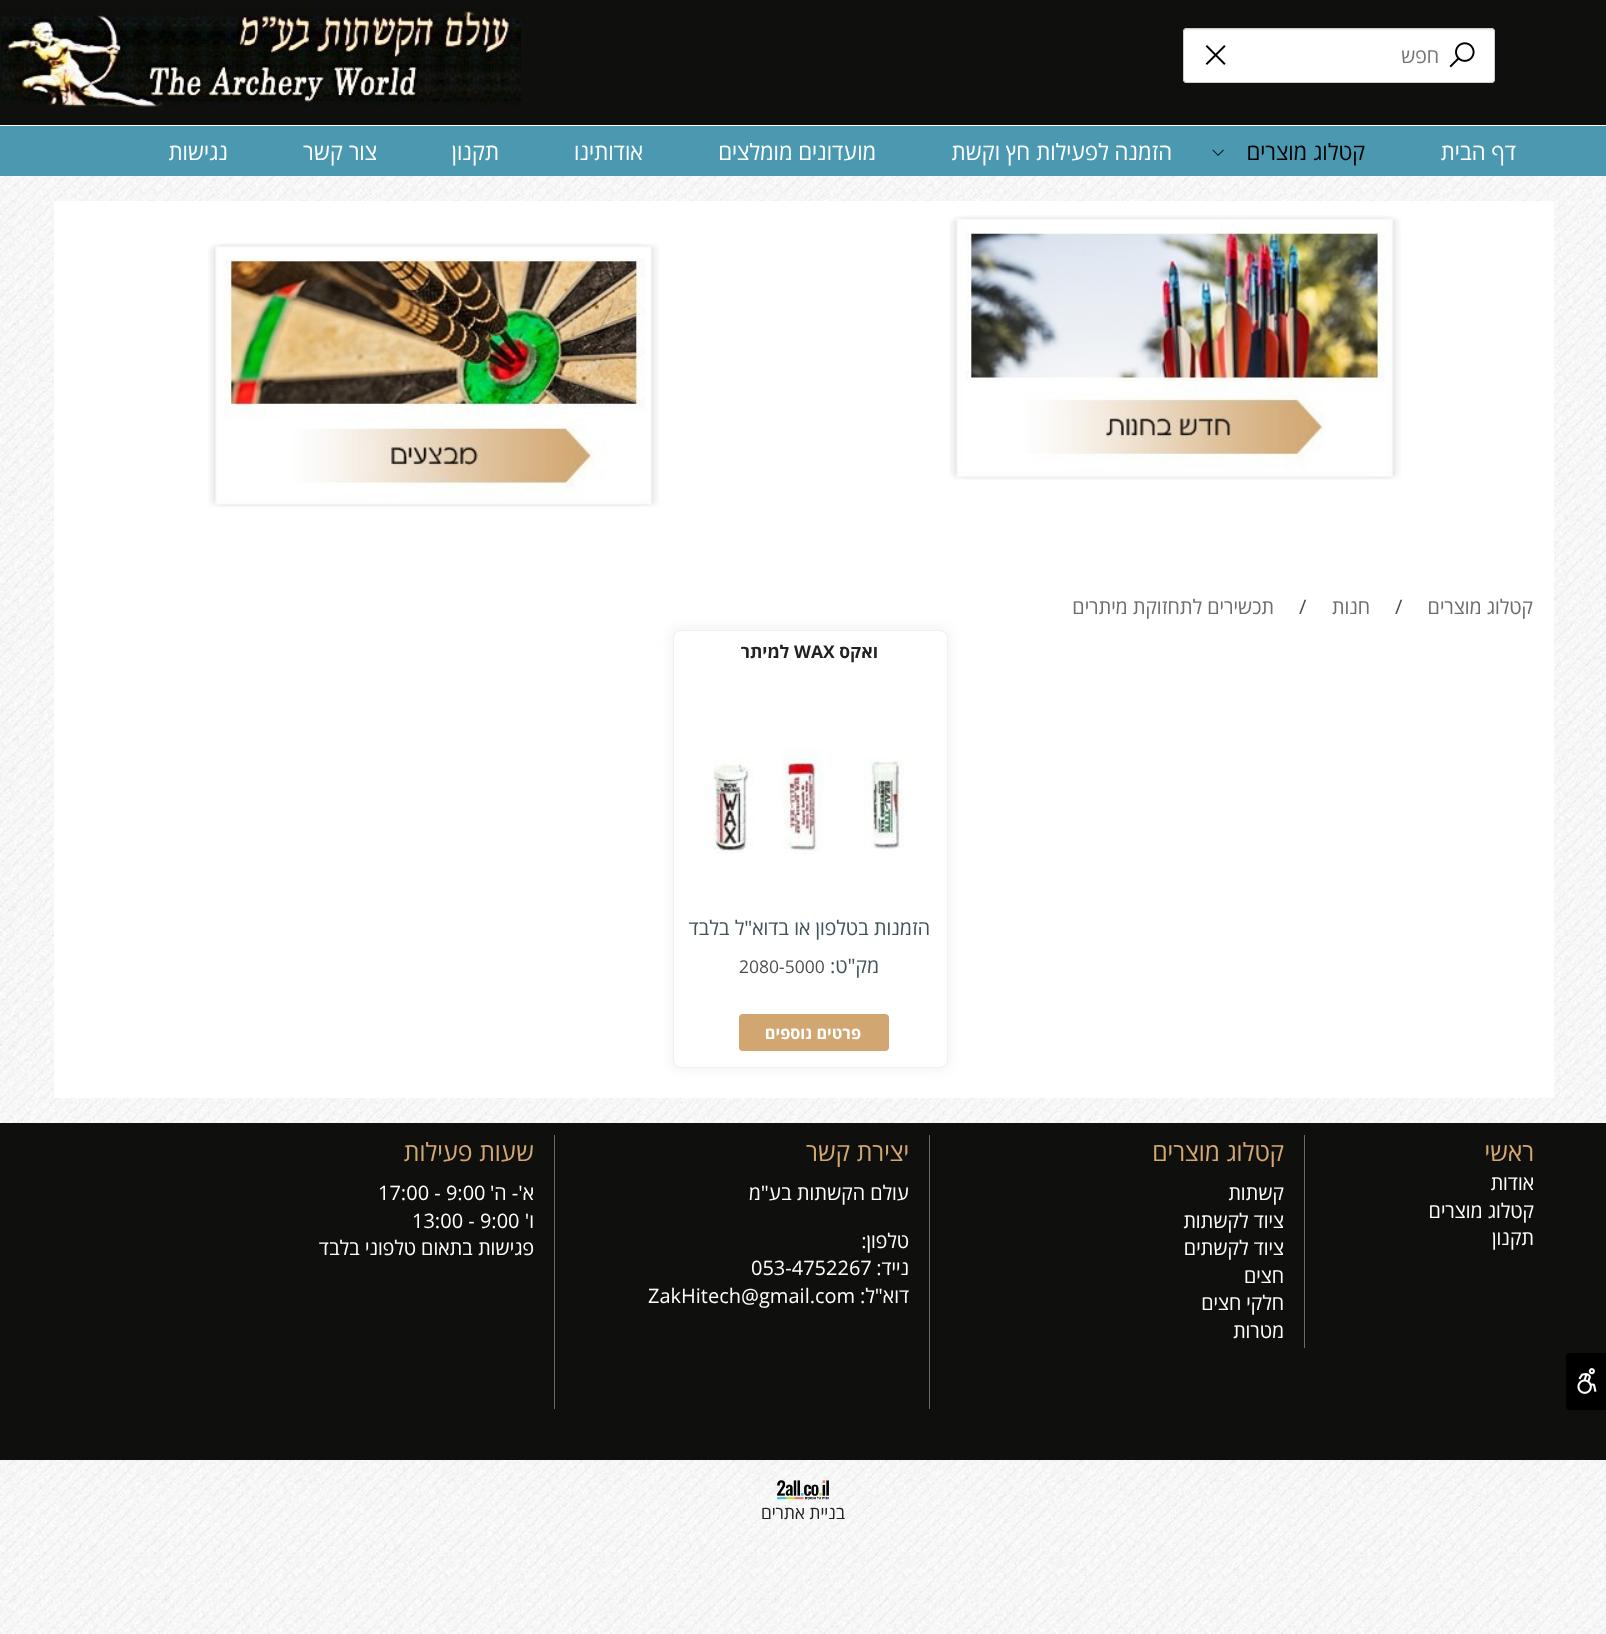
(async () => {
  const canvas = document.querySelector("canvas");
  canvas.width = 1606;
  canvas.height = 1634;
  const ctx = canvas.getContext("2d");
  ctx.miterLimit = 4;
  ctx.fontKerning = "normal";
  async function loadImage(src) {
    const img = new Image();
    img.src = src;
    await img.decode();
    return img;
  }
  let path;

  ctx.fillStyle = "#ffffff";
  ctx.fillRect(0, 0, 1606, 1634);
  ctx.drawImage(await loadImage("img/1.png"), 0, 176, 1606, 1458);
  ctx.fillStyle = "#0f0f0d";
  ctx.fillRect(0, 0, 1606, 125);
  ctx.fillStyle = "#ffffff";
  ctx.beginPath();
  ctx.roundRect(1183, 28, 312, 55, 4);
  ctx.fill();
  ctx.fillStyle = "#ececec";
  path = new Path2D("M1186 30H1491C1493 30 1494 31 1494 32V31L1492 29H1186C1184 30 1184 31 1184 32C1184 31 1185 30 1186 30Z");
  ctx.fill(path);
  ctx.beginPath();
  ctx.roundRect(1183.5, 28.5, 311, 54, 3.5);
  ctx.strokeStyle = "#cccccc";
  ctx.stroke();
  ctx.drawImage(await loadImage("img/2.png"), 1449, 42, 26, 26);
  ctx.drawImage(await loadImage("img/3.png"), 1205, 45, 21, 20);
  ctx.drawImage(await loadImage("img/4.png"), 1, 8, 520, 99);
  ctx.fillStyle = "#4b99b1";
  ctx.fillRect(0, 126, 1606, 50);
  ctx.drawImage(await loadImage("img/5.png"), 1212, 149, 12, 7);
  ctx.fillStyle = "#ffffff";
  ctx.fillRect(54, 201, 1500, 897);
  ctx.drawImage(await loadImage("img/6.png"), 949, 215, 452, 265);
  ctx.drawImage(await loadImage("img/7.png"), 208, 243, 451, 264);
  ctx.fillStyle = "#f5f5f5";
  ctx.filter = "blur(5.5px)";
  ctx.beginPath();
  ctx.roundRect(669, 626, 282, 445, 11);
  ctx.fill();
  ctx.filter = "none";
  ctx.fillStyle = "#ffffff";
  ctx.beginPath();
  ctx.roundRect(673.5, 630.5, 274, 437, 7.5);
  ctx.fill();
  ctx.strokeStyle = "#f0f0f0";
  ctx.stroke();
  ctx.drawImage(await loadImage("img/8.png"), 704, 748, 200, 106);
  ctx.fillStyle = "#d2a671";
  ctx.beginPath();
  ctx.roundRect(739, 1014, 150, 37, 4);
  ctx.fill();
  for (const [x, y, w, h, color] of [
    [0, 1123, 1606, 337, "#0f0f0d"],
    [1304, 1135, 1, 213, "#6b6b6b"],
    [929, 1135, 1, 274, "#6b6b6b"],
    [554, 1135, 1, 274, "#6b6b6b"],
  ]) {
    ctx.fillStyle = color;
    ctx.fillRect(x, y, w, h);
  }
  ctx.fillStyle = "#000000";
  ctx.beginPath();
  ctx.roundRect(1566, 1353, 40, 57, [4, 0, 0, 4]);
  ctx.fill();
  ctx.drawImage(await loadImage("img/9.png"), 1577, 1368, 20, 26);
  ctx.drawImage(await loadImage("img/10.png"), 776, 1480, 53, 20);
  ctx.direction = "rtl";
  ctx.font = "20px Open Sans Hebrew";
  ctx.fillStyle = "#757575";
  ctx.fillText("חפש", 1439, 63);
  ctx.font = "22.5px Open Sans Hebrew";
  ctx.fillStyle = "#ffffff";
  ctx.fillText("דף הבית", 1516, 160);
  ctx.fillStyle = "#000000";
  ctx.fillText("קטלוג מוצרים", 1365, 160);
  ctx.fillStyle = "#ffffff";
  for (const [text, x, y] of [
    ["הזמנה לפעילות חץ וקשת", 1172, 160],
    ["מועדונים מומלצים", 876, 160],
    ["אודותינו", 643, 160],
    ["תקנון", 499, 160],
    ["צור קשר", 377, 160],
    ["נגישות", 228, 160],
  ]) {
    ctx.fillText(text, x, y);
  }
  ctx.font = "20px Open Sans Hebrew";
  ctx.fillStyle = "#706970";
  ctx.fillText("קטלוג מוצרים", 1533, 614);
  ctx.direction = "ltr";
  ctx.fillStyle = "#3f5257";
  ctx.fillText("/", 1395, 614);
  ctx.direction = "rtl";
  ctx.fillStyle = "#706970";
  ctx.fillText("חנות", 1370, 614);
  ctx.direction = "ltr";
  ctx.fillStyle = "#3f5257";
  ctx.fillText("/", 1299, 614);
  ctx.direction = "rtl";
  ctx.fillStyle = "#706970";
  ctx.fillText("תכשירים לתחזוקת מיתרים", 1274, 614);
  ctx.font = "bold 17.5px Open Sans Hebrew";
  ctx.fillStyle = "#222222";
  ctx.fillText("ואקס", 878, 658);
  ctx.direction = "ltr";
  ctx.fillText("WAX", 794, 658);
  ctx.direction = "rtl";
  ctx.fillText("למיתר", 789, 658);
  ctx.font = "20px Open Sans Hebrew";
  ctx.fillStyle = "#3f5257";
  ctx.fillText("הזמנות בטלפון או בדוא\"ל בלבד", 930, 935);
  ctx.fillText("מק\"ט:", 879, 973);
  ctx.direction = "ltr";
  ctx.font = "17.5px Open Sans Hebrew";
  ctx.fillStyle = "#4d4d4d";
  ctx.fillText("2080-5000", 739, 973);
  ctx.direction = "rtl";
  ctx.font = "bold 16.25px Open Sans Hebrew";
  ctx.fillStyle = "#ffffff";
  ctx.fillText("פרטים נוספים", 861, 1039);
  ctx.font = "25px Open Sans Hebrew";
  ctx.fillStyle = "#d2a771";
  ctx.fillText("ראשי", 1534, 1161);
  ctx.font = "20px Open Sans Hebrew";
  ctx.fillStyle = "#ffffff";
  for (const [text, x, y] of [
    ["אודות", 1534, 1190],
    ["קטלוג מוצרים", 1534, 1218],
    ["תקנון", 1534, 1245],
  ]) {
    ctx.fillText(text, x, y);
  }
  ctx.font = "25px Open Sans Hebrew";
  ctx.fillStyle = "#d2a771";
  ctx.fillText("קטלוג מוצרים", 1284, 1161);
  ctx.font = "20px Open Sans Hebrew";
  ctx.fillStyle = "#ffffff";
  for (const [text, x, y] of [
    ["קשתות", 1284, 1200],
    ["ציוד לקשתות", 1284, 1228],
    ["ציוד לקשתים", 1284, 1255],
    ["חצים", 1284, 1283],
    ["חלקי חצים", 1284, 1310],
    ["מטרות", 1284, 1338],
  ]) {
    ctx.fillText(text, x, y);
  }
  ctx.font = "25px Open Sans Hebrew";
  ctx.fillStyle = "#d2a771";
  ctx.fillText("יצירת קשר", 909, 1161);
  ctx.font = "20px Open Sans Hebrew";
  ctx.fillStyle = "#ffffff";
  for (const [text, x, y] of [
    ["עולם הקשתות בע\"מ", 909, 1200],
    ["טלפון:", 909, 1248],
    ["נייד:", 909, 1275],
  ]) {
    ctx.fillText(text, x, y);
  }
  ctx.direction = "ltr";
  ctx.fillText("053-4752267", 751, 1275);
  ctx.direction = "rtl";
  ctx.fillText("דוא\"ל:", 909, 1303);
  ctx.direction = "ltr";
  ctx.fillText("ZakHitech@gmail.com", 648, 1303);
  ctx.direction = "rtl";
  ctx.font = "25px Open Sans Hebrew";
  ctx.fillStyle = "#d2a771";
  ctx.fillText("שעות פעילות", 534, 1161);
  ctx.font = "20px Open Sans Hebrew";
  ctx.fillStyle = "#ffffff";
  ctx.fillText("א'- ה'", 534, 1200);
  ctx.direction = "ltr";
  ctx.fillText("17:00 - 9:00", 378, 1200);
  ctx.direction = "rtl";
  ctx.fillText("ו'", 534, 1228);
  ctx.direction = "ltr";
  ctx.fillText("13:00 - 9:00", 412, 1228);
  ctx.direction = "rtl";
  ctx.fillText("פגישות בתאום טלפוני בלבד", 534, 1255);
  ctx.font = "17.5px Open Sans Hebrew";
  ctx.fillStyle = "#222222";
  ctx.fillText("בניית אתרים", 845, 1519);
})();
